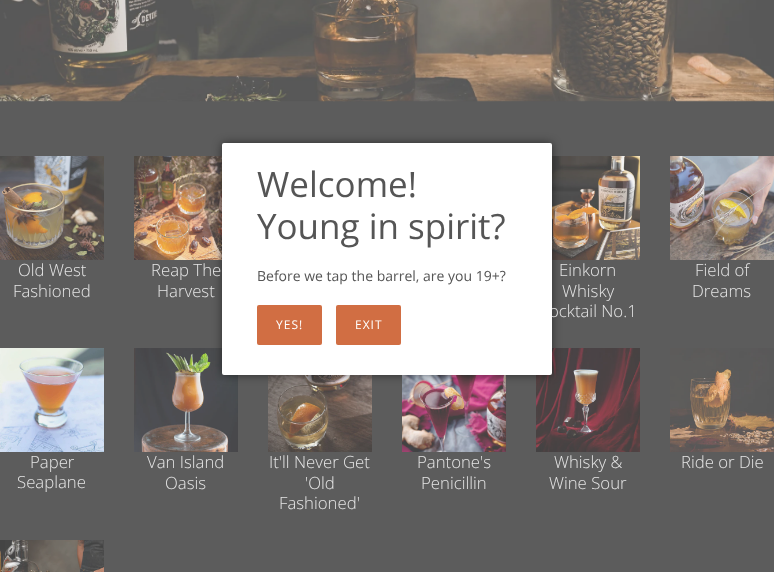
(async () => {
  const canvas = document.querySelector("canvas");
  canvas.width = 774;
  canvas.height = 572;
  const ctx = canvas.getContext("2d");
  ctx.miterLimit = 4;
  ctx.fontKerning = "normal";
  async function loadImage(src) {
    const img = new Image();
    img.src = src;
    await img.decode();
    return img;
  }

  ctx.fillStyle = "#5c5c5c";
  ctx.fillRect(0, 0, 774, 572);
  ctx.drawImage(await loadImage("img/3.png"), 134, 156, 88, 104);
  ctx.drawImage(await loadImage("img/4.png"), 552, 156, 88, 104);
  ctx.drawImage(await loadImage("img/7.png"), 134, 348, 104, 104);
  ctx.drawImage(await loadImage("img/8.png"), 268, 375, 104, 77);
  ctx.drawImage(await loadImage("img/9.png"), 402, 375, 104, 77);
  ctx.drawImage(await loadImage("img/10.png"), 536, 348, 104, 104);
  ctx.fillStyle = "rgba(0, 0, 0, 0.5)";
  ctx.filter = "blur(5px)";
  ctx.beginPath();
  ctx.roundRect(222, 143, 330, 232, 2);
  ctx.fill();
  ctx.filter = "none";
  ctx.drawImage(await loadImage("img/1.png"), 0, 0, 774, 102);
  ctx.drawImage(await loadImage("img/2.png"), 0, 156, 104, 104);
  ctx.drawImage(await loadImage("img/5.png"), 670, 156, 104, 104);
  ctx.drawImage(await loadImage("img/6.png"), 0, 348, 104, 104);
  ctx.drawImage(await loadImage("img/11.png"), 670, 348, 104, 104);
  ctx.drawImage(await loadImage("img/12.png"), 0, 540, 104, 32);
  ctx.font = "300 16.75px Open Sans";
  ctx.fillStyle = "#e5e5e5";
  for (const [text, x, y] of [
    ["Old West", 18, 276],
    ["Fashioned", 13, 297],
    ["Reap The", 151, 276],
    ["Harvest", 157, 297],
    ["Einkorn", 559, 276],
    ["Whisky", 562, 297],
    ["ocktail No.1", 549, 317],
  ]) {
    ctx.fillText(text, x, y);
  }
  ctx.fillStyle = "#ffffff";
  ctx.beginPath();
  ctx.roundRect(222, 143, 330, 232, 2);
  ctx.fill();
  ctx.fillStyle = "#d16e43";
  ctx.beginPath();
  ctx.roundRect(336, 305, 65, 40, 2);
  ctx.fill();
  ctx.letterSpacing = "1px";
  ctx.font = "12px Open Sans";
  ctx.fillStyle = "#ffffff";
  ctx.fillText("EXIT", 355, 329);
  ctx.fillStyle = "#d16e43";
  ctx.beginPath();
  ctx.roundRect(257, 305, 65, 40, 2);
  ctx.fill();
  ctx.fillStyle = "#ffffff";
  ctx.fillText("YES!", 276, 329);
  ctx.letterSpacing = "0px";
  ctx.font = "14px Open Sans";
  ctx.fillStyle = "#555555";
  ctx.fillText("Before we tap the barrel, are you 19+?", 257, 281);
  ctx.font = "35px Open Sans";
  ctx.fillText("Young in spirit?", 257, 239);
  ctx.fillText("Welcome!", 257, 197);
  ctx.font = "300 16.75px Open Sans";
  ctx.fillStyle = "#e5e5e5";
  for (const [text, x, y] of [
    ["Field of", 695, 276],
    ["Dreams", 692, 297],
    ["Paper", 30, 468],
    ["Seaplane", 17, 488],
    ["Van Island", 147, 468],
    ["Oasis", 165, 489],
    ["It'll Never Get", 269, 468],
    ["'Old", 305, 489],
    ["Fashioned'", 279, 509],
    ["Pantone's", 417, 468],
    ["Penicillin", 421, 489],
    ["Whisky &", 554, 468],
    ["Wine Sour", 549, 489],
    ["Ride or Die", 681, 468],
  ]) {
    ctx.fillText(text, x, y);
  }
})();
